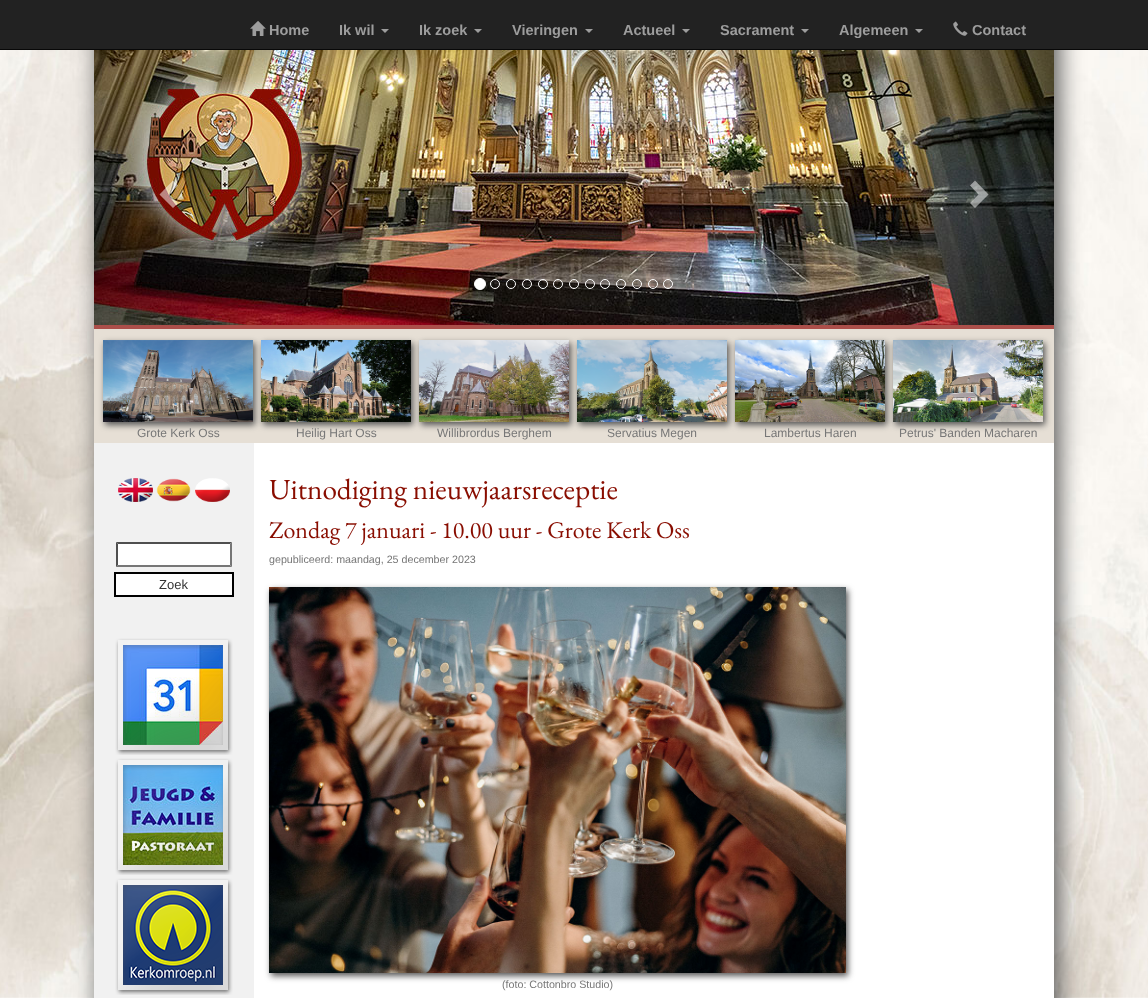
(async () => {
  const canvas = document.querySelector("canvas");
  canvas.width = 1148;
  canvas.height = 998;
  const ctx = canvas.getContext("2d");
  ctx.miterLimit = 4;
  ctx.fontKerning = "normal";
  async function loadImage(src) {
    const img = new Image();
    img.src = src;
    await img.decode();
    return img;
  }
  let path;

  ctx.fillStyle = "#ffffff";
  ctx.fillRect(0, 0, 1148, 998);
  ctx.drawImage(await loadImage("img/1.png"), 0, 50, 1148, 948);
  ctx.fillStyle = "#555555";
  ctx.filter = "blur(12.5px)";
  ctx.beginPath();
  ctx.rect(99, 5, 960, 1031);
  ctx.fill();
  ctx.filter = "none";
  ctx.fillStyle = "#222222";
  ctx.fillRect(0, 0, 1148, 49);
  ctx.fillStyle = "#080808";
  ctx.fillRect(0, 49, 1148, 1);
  ctx.drawImage(await loadImage("img/2.png"), 250, 21, 16, 15);
  ctx.fillStyle = "#9d9d9d";
  path = new Path2D("M381 29H389L385 33Z");
  ctx.fill(path);
  path = new Path2D("M474 29H482L478 33Z");
  ctx.fill(path);
  path = new Path2D("M585 29H593L589 33Z");
  ctx.fill(path);
  path = new Path2D("M682 29H690L686 33Z");
  ctx.fill(path);
  path = new Path2D("M801 29H809L805 33Z");
  ctx.fill(path);
  path = new Path2D("M915 29H923L919 33Z");
  ctx.fill(path);
  ctx.drawImage(await loadImage("img/3.png"), 953, 21, 15, 15);
  ctx.fillStyle = "#ffffff";
  ctx.fillRect(254, 443, 800, 555);
  ctx.drawImage(await loadImage("img/4.png"), 94, 50, 960, 275);
  ctx.fillStyle = "rgba(255, 255, 255, 0.5)";
  path = new Path2D("M178 185.5L169.5 194.5L178 203L173 208L159.5 194.5L173 180.5Z");
  ctx.fill(path);
  path = new Path2D("M988.5 194.5L975 208L970 203L978.5 194.5L970 185.5L975 180.5Z");
  ctx.fill(path);
  ctx.fillStyle = "#ffffff";
  ctx.beginPath();
  ctx.arc(480, 284, 5.5, 0, Math.PI * 2);
  ctx.fill();
  ctx.strokeStyle = "#ffffff";
  ctx.stroke();
  ctx.beginPath();
  ctx.arc(495, 284, 4.5, 0, Math.PI * 2);
  ctx.stroke();
  ctx.beginPath();
  ctx.arc(511, 284, 4.5, 0, Math.PI * 2);
  ctx.stroke();
  ctx.beginPath();
  ctx.arc(527, 284, 4.5, 0, Math.PI * 2);
  ctx.stroke();
  ctx.beginPath();
  ctx.arc(543, 284, 4.5, 0, Math.PI * 2);
  ctx.stroke();
  ctx.beginPath();
  ctx.arc(558, 284, 4.5, 0, Math.PI * 2);
  ctx.stroke();
  ctx.beginPath();
  ctx.arc(574, 284, 4.5, 0, Math.PI * 2);
  ctx.stroke();
  ctx.beginPath();
  ctx.arc(590, 284, 4.5, 0, Math.PI * 2);
  ctx.stroke();
  ctx.beginPath();
  ctx.arc(605, 284, 4.5, 0, Math.PI * 2);
  ctx.stroke();
  ctx.beginPath();
  ctx.arc(621, 284, 4.5, 0, Math.PI * 2);
  ctx.stroke();
  ctx.beginPath();
  ctx.arc(637, 284, 4.5, 0, Math.PI * 2);
  ctx.stroke();
  ctx.beginPath();
  ctx.arc(653, 284, 4.5, 0, Math.PI * 2);
  ctx.stroke();
  ctx.beginPath();
  ctx.arc(668, 284, 4.5, 0, Math.PI * 2);
  ctx.stroke();
  ctx.fillStyle = "#ac4f4a";
  ctx.fillRect(94, 325, 960, 4);
  ctx.fillStyle = "#e6dfd5";
  ctx.fillRect(94, 329, 960, 114);
  ctx.fillStyle = "#555555";
  ctx.filter = "blur(3px)";
  ctx.beginPath();
  ctx.rect(105, 343, 150, 82);
  ctx.fill();
  ctx.filter = "none";
  ctx.drawImage(await loadImage("img/5.png"), 103, 340, 150, 82);
  ctx.filter = "blur(3px)";
  ctx.beginPath();
  ctx.rect(263, 343, 150, 82);
  ctx.fill();
  ctx.filter = "none";
  ctx.drawImage(await loadImage("img/6.png"), 261, 340, 150, 82);
  ctx.filter = "blur(3px)";
  ctx.beginPath();
  ctx.rect(421, 343, 150, 82);
  ctx.fill();
  ctx.filter = "none";
  ctx.drawImage(await loadImage("img/7.png"), 419, 340, 150, 82);
  ctx.filter = "blur(3px)";
  ctx.beginPath();
  ctx.rect(579, 343, 150, 82);
  ctx.fill();
  ctx.filter = "none";
  ctx.drawImage(await loadImage("img/8.png"), 577, 340, 150, 82);
  ctx.filter = "blur(3px)";
  ctx.beginPath();
  ctx.rect(737, 343, 150, 82);
  ctx.fill();
  ctx.filter = "none";
  ctx.drawImage(await loadImage("img/9.png"), 735, 340, 150, 82);
  ctx.filter = "blur(3px)";
  ctx.beginPath();
  ctx.rect(895, 343, 150, 82);
  ctx.fill();
  ctx.filter = "none";
  ctx.drawImage(await loadImage("img/10.png"), 893, 340, 150, 82);
  ctx.fillStyle = "#f1f1f1";
  ctx.fillRect(94, 443, 160, 555);
  ctx.drawImage(await loadImage("img/11.png"), 118, 478, 35, 24);
  ctx.drawImage(await loadImage("img/12.png"), 156, 478, 35, 24);
  ctx.drawImage(await loadImage("img/13.png"), 195, 478, 35, 24);
  ctx.fillStyle = "#ffffff";
  ctx.fillRect(116, 542, 116, 25);
  ctx.fillStyle = "#4f4f4f";
  path = new Path2D("M116 542H232L230 544H118Z");
  ctx.fill(path);
  ctx.fillStyle = "#767676";
  path = new Path2D("M232 542V567L230 565V544Z");
  ctx.fill(path);
  path = new Path2D("M232 567H116L118 565H230Z");
  ctx.fill(path);
  ctx.fillStyle = "#4f4f4f";
  path = new Path2D("M116 567V542L118 544V565Z");
  ctx.fill(path);
  ctx.fillStyle = "#ffffff";
  ctx.beginPath();
  ctx.rect(115, 573, 118, 23);
  ctx.fill();
  ctx.strokeStyle = "#000000";
  ctx.lineWidth = 2;
  ctx.stroke();
  ctx.drawImage(await loadImage("img/14.png"), 123, 645, 100, 100);
  ctx.drawImage(await loadImage("img/15.png"), 115, 638, 118, 117);
  ctx.drawImage(await loadImage("img/16.png"), 123, 765, 100, 100);
  ctx.drawImage(await loadImage("img/17.png"), 115, 758, 118, 117);
  ctx.drawImage(await loadImage("img/18.png"), 123, 885, 100, 100);
  ctx.drawImage(await loadImage("img/19.png"), 115, 878, 118, 117);
  ctx.fillStyle = "#555555";
  ctx.filter = "blur(3px)";
  ctx.beginPath();
  ctx.rect(271, 590, 577, 386);
  ctx.fill();
  ctx.filter = "none";
  ctx.drawImage(await loadImage("img/20.png"), 269, 587, 577, 386);
  ctx.font = "bold 14.5px Liberation Sans";
  ctx.fillStyle = "#9d9d9d";
  for (const [text, x, y] of [
    ["Home", 269, 35],
    ["Ik wil", 339, 35],
    ["Ik zoek", 419, 35],
    ["Vieringen", 512, 35],
    ["Actueel", 623, 35],
    ["Sacrament", 720, 35],
    ["Algemeen", 839, 35],
    ["Contact", 972, 35],
  ]) {
    ctx.fillText(text, x, y);
  }
  ctx.font = "12px Liberation Sans";
  ctx.fillStyle = "#777777";
  for (const [text, x, y] of [
    ["Grote Kerk Oss", 137, 437],
    ["Heilig Hart Oss", 296, 437],
    ["Willibrordus Berghem", 437, 437],
    ["Servatius Megen", 607, 437],
    ["Lambertus Haren", 764, 437],
    ["Petrus' Banden Macharen", 899, 437],
  ]) {
    ctx.fillText(text, x, y);
  }
  ctx.font = "13px Liberation Sans";
  ctx.fillStyle = "#333333";
  ctx.fillText("Zoek", 159, 589);
  ctx.font = "29.25px EB Garamond";
  ctx.fillStyle = "#890d00";
  ctx.fillText("Uitnodiging nieuwjaarsreceptie", 269, 499);
  ctx.font = "24px EB Garamond";
  ctx.fillText("Zondag 7 januari - 10.00 uur - Grote Kerk Oss", 269, 538);
  ctx.font = "10.7px Liberation Sans";
  ctx.fillStyle = "#777777";
  ctx.fillText("gepubliceerd: maandag, 25 december 2023", 269, 563);
  ctx.fillText("(foto: Cottonbro Studio)", 502, 988);
})();
